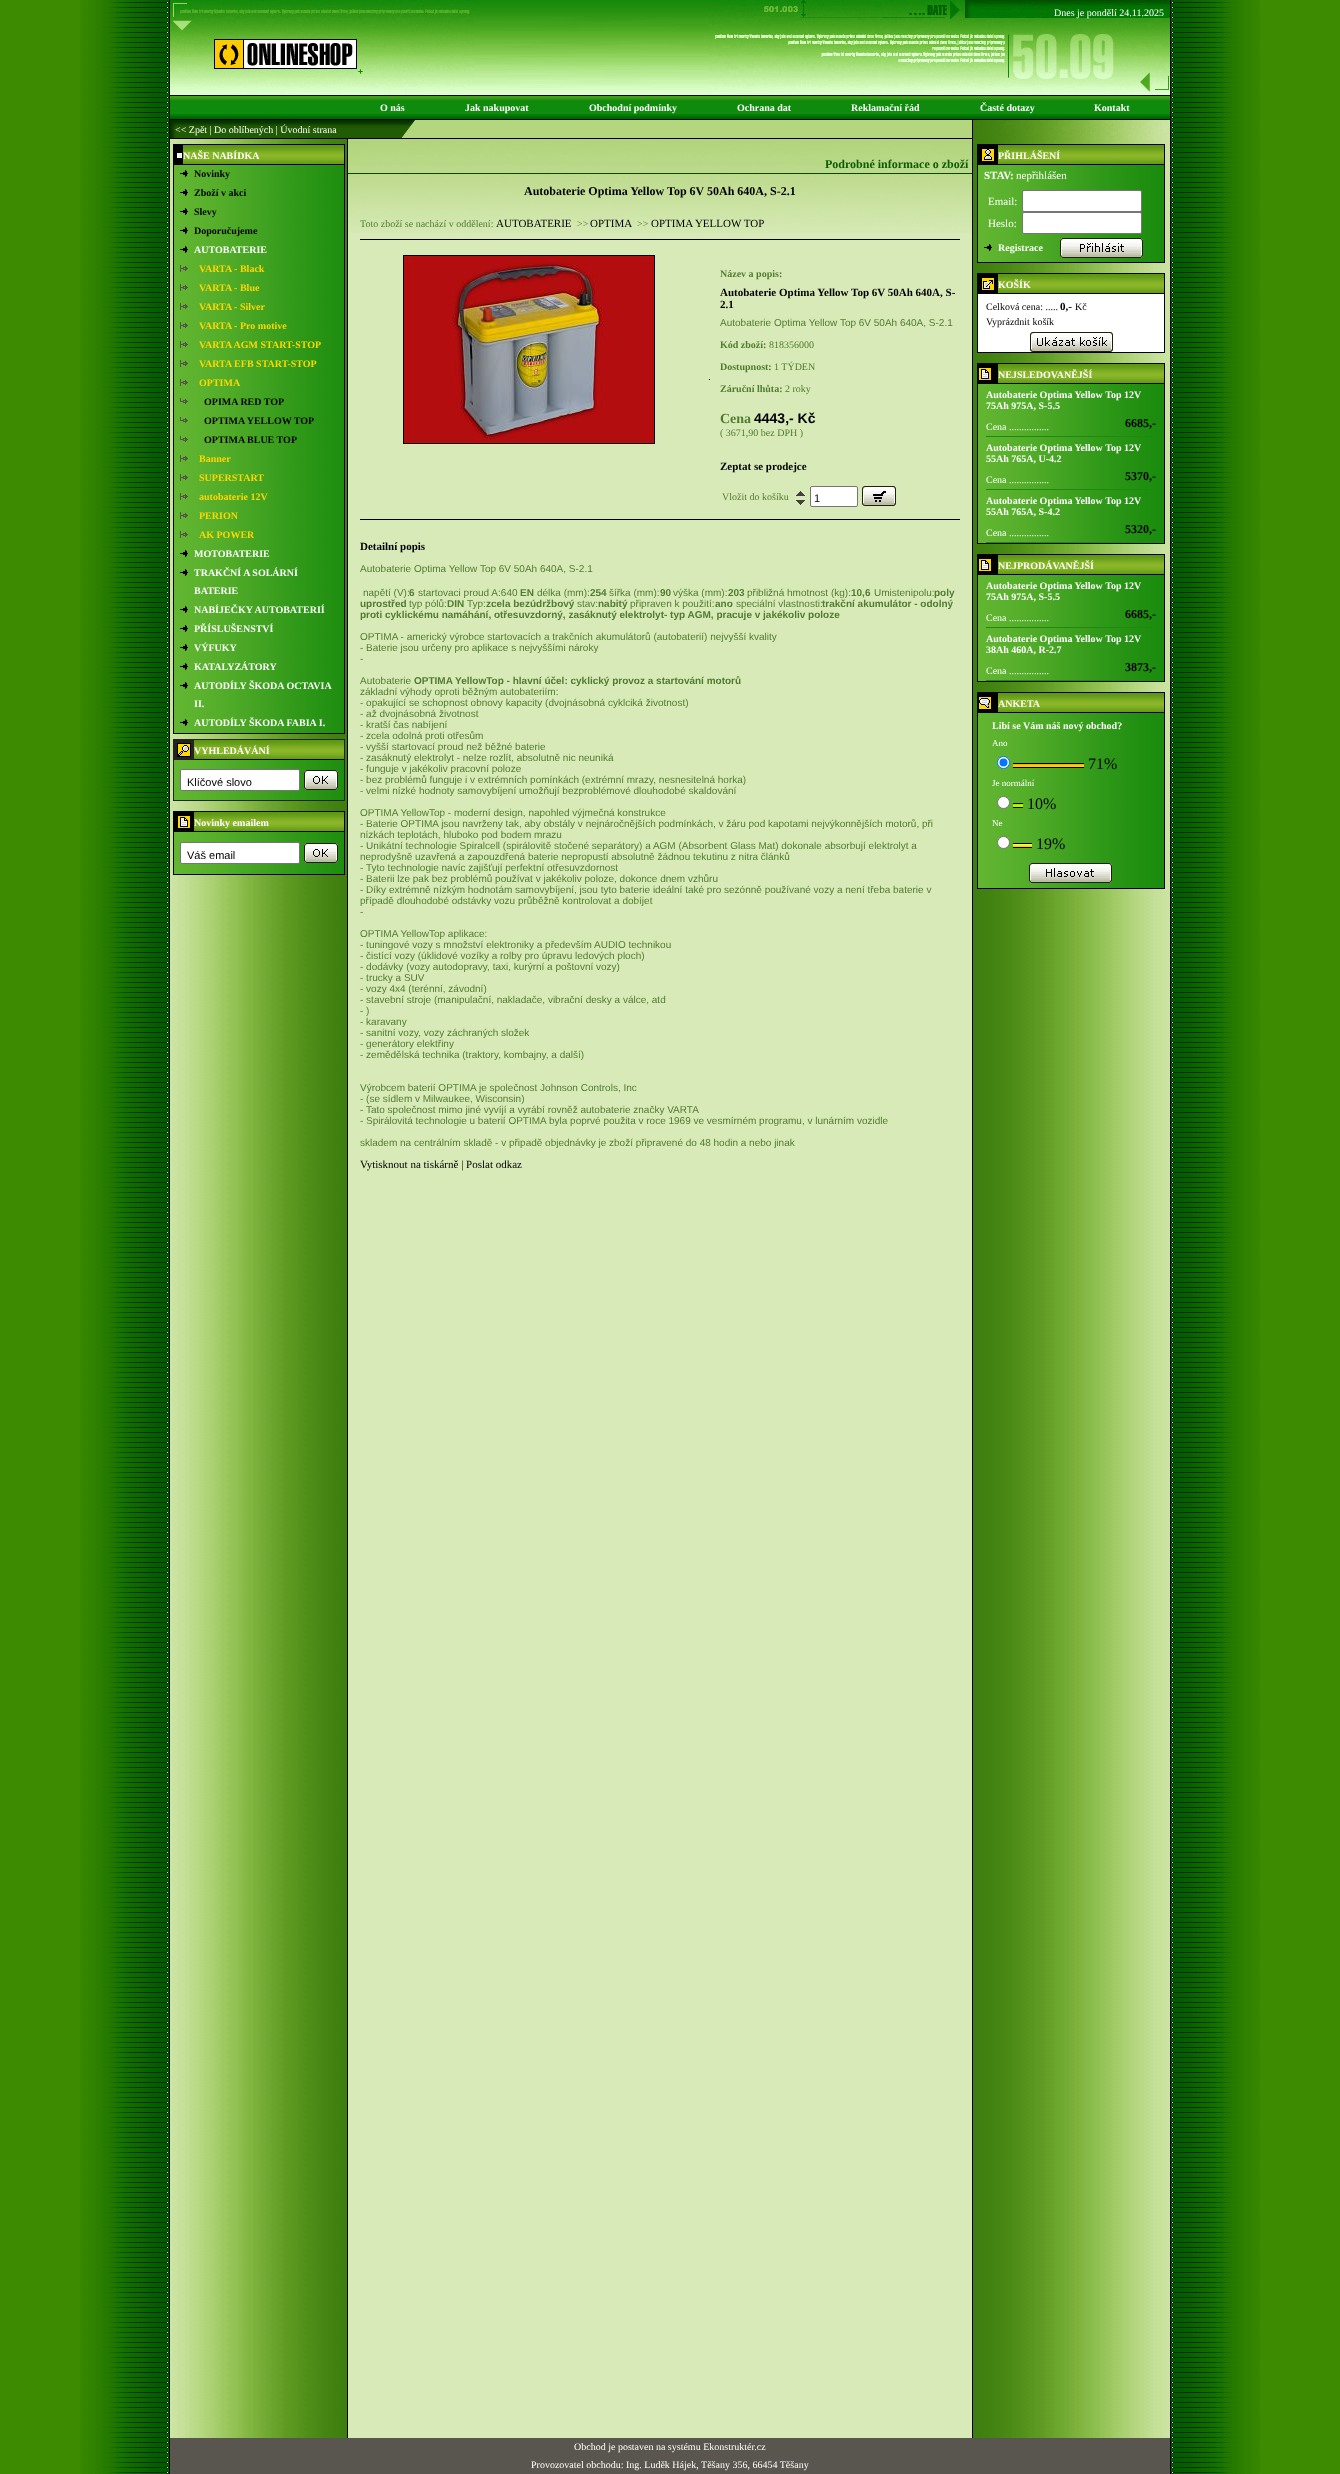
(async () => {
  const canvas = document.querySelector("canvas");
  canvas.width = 1340;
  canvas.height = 2474;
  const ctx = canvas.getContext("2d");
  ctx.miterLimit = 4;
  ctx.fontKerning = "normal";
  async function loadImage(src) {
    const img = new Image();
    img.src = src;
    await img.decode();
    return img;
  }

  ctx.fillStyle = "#3c8b00";
  ctx.fillRect(0, 0, 1340, 2474);
  ctx.drawImage(await loadImage("img/3.png"), 170, 0, 1000, 120);
  ctx.drawImage(await loadImage("img/1.png"), 214, 39, 143, 30);
  ctx.drawImage(await loadImage("img/2.png"), 80, 0, 89, 2474);
  ctx.fillStyle = "#000000";
  ctx.fillRect(169, 0, 1, 2474);
  ctx.drawImage(await loadImage("img/4.png"), 170, 120, 1000, 19);
  ctx.drawImage(await loadImage("img/5.png"), 170, 139, 178, 2299);
  ctx.fillRect(173, 144, 172, 590);
  ctx.drawImage(await loadImage("img/6.png"), 177, 153, 5, 5);
  ctx.drawImage(await loadImage("img/7.png"), 183, 145, 116, 19);
  ctx.drawImage(await loadImage("img/8.png"), 299, 145, 45, 19);
  ctx.drawImage(await loadImage("img/9.png"), 174, 165, 170, 568);
  ctx.drawImage(await loadImage("img/10.png"), 180, 170, 8, 7);
  ctx.drawImage(await loadImage("img/11.png"), 180, 189, 8, 7);
  ctx.drawImage(await loadImage("img/12.png"), 180, 208, 8, 7);
  ctx.drawImage(await loadImage("img/10.png"), 180, 227, 8, 7);
  ctx.drawImage(await loadImage("img/11.png"), 180, 246, 8, 7);
  ctx.drawImage(await loadImage("img/13.png"), 180, 265, 8, 7);
  ctx.drawImage(await loadImage("img/14.png"), 180, 284, 8, 7);
  ctx.drawImage(await loadImage("img/15.png"), 180, 303, 8, 7);
  ctx.drawImage(await loadImage("img/13.png"), 180, 322, 8, 7);
  ctx.drawImage(await loadImage("img/14.png"), 180, 341, 8, 7);
  ctx.drawImage(await loadImage("img/15.png"), 180, 360, 8, 7);
  ctx.drawImage(await loadImage("img/13.png"), 180, 379, 8, 7);
  ctx.drawImage(await loadImage("img/16.png"), 180, 398, 8, 6);
  ctx.drawImage(await loadImage("img/17.png"), 180, 417, 8, 6);
  ctx.drawImage(await loadImage("img/18.png"), 180, 436, 8, 6);
  ctx.drawImage(await loadImage("img/14.png"), 180, 455, 8, 7);
  ctx.drawImage(await loadImage("img/15.png"), 180, 474, 8, 7);
  ctx.drawImage(await loadImage("img/13.png"), 180, 493, 8, 7);
  ctx.drawImage(await loadImage("img/14.png"), 180, 512, 8, 7);
  ctx.drawImage(await loadImage("img/15.png"), 180, 531, 8, 7);
  ctx.drawImage(await loadImage("img/12.png"), 180, 550, 8, 7);
  ctx.drawImage(await loadImage("img/10.png"), 180, 569, 8, 7);
  ctx.drawImage(await loadImage("img/11.png"), 180, 606, 8, 7);
  ctx.drawImage(await loadImage("img/12.png"), 180, 625, 8, 7);
  ctx.drawImage(await loadImage("img/10.png"), 180, 644, 8, 7);
  ctx.drawImage(await loadImage("img/11.png"), 180, 663, 8, 7);
  ctx.drawImage(await loadImage("img/12.png"), 180, 682, 8, 7);
  ctx.drawImage(await loadImage("img/10.png"), 180, 719, 8, 7);
  ctx.fillStyle = "#242320";
  ctx.fillRect(173, 739, 172, 62);
  ctx.drawImage(await loadImage("img/19.png"), 177, 743, 14, 14);
  ctx.drawImage(await loadImage("img/20.png"), 194, 740, 105, 20);
  ctx.drawImage(await loadImage("img/21.png"), 299, 740, 45, 20);
  ctx.drawImage(await loadImage("img/22.png"), 174, 760, 170, 40);
  ctx.fillStyle = "#ffffff";
  ctx.beginPath();
  ctx.roundRect(180.5, 769.5, 119, 21, 1.5);
  ctx.fill();
  ctx.strokeStyle = "#767676";
  ctx.stroke();
  ctx.drawImage(await loadImage("img/23.png"), 304, 770, 34, 20);
  ctx.fillStyle = "#000000";
  ctx.fillRect(173, 811, 172, 64);
  ctx.drawImage(await loadImage("img/24.png"), 178, 816, 12, 12);
  ctx.drawImage(await loadImage("img/25.png"), 194, 812, 105, 19);
  ctx.drawImage(await loadImage("img/8.png"), 299, 812, 45, 19);
  ctx.drawImage(await loadImage("img/26.png"), 174, 832, 170, 42);
  ctx.fillStyle = "#ffffff";
  ctx.beginPath();
  ctx.roundRect(180.5, 842.5, 119, 21, 1.5);
  ctx.fill();
  ctx.stroke();
  ctx.drawImage(await loadImage("img/27.png"), 304, 843, 34, 20);
  ctx.fillStyle = "#d8eab8";
  ctx.fillRect(348, 233, 624, 2205);
  ctx.drawImage(await loadImage("img/28.png"), 348, 139, 624, 94);
  ctx.fillStyle = "#074800";
  ctx.fillRect(348, 173, 624, 1);
  ctx.fillStyle = "#000000";
  ctx.fillRect(360, 239, 600, 1);
  ctx.strokeStyle = "#000000";
  ctx.strokeRect(403.5, 255.5, 251, 188);
  ctx.drawImage(await loadImage("img/29.png"), 404, 256, 250, 187);
  ctx.fillRect(709, 379, 1, 1);
  ctx.drawImage(await loadImage("img/30.png"), 796, 491, 9, 5);
  ctx.drawImage(await loadImage("img/31.png"), 796, 500, 9, 5);
  ctx.fillStyle = "#ffffff";
  ctx.beginPath();
  ctx.roundRect(810.5, 486.5, 47, 20, 1.5);
  ctx.fill();
  ctx.strokeStyle = "#767676";
  ctx.stroke();
  ctx.drawImage(await loadImage("img/32.png"), 862, 486, 34, 20);
  ctx.fillStyle = "#000000";
  ctx.fillRect(360, 519, 600, 1);
  ctx.drawImage(await loadImage("img/33.png"), 972, 139, 198, 2299);
  ctx.fillRect(977, 144, 188, 119);
  ctx.drawImage(await loadImage("img/34.png"), 982, 149, 12, 12);
  ctx.drawImage(await loadImage("img/35.png"), 998, 145, 121, 19);
  ctx.drawImage(await loadImage("img/8.png"), 1119, 145, 45, 19);
  ctx.drawImage(await loadImage("img/36.png"), 978, 165, 186, 20);
  ctx.drawImage(await loadImage("img/37.png"), 978, 185, 186, 49);
  ctx.fillStyle = "#ffffff";
  ctx.beginPath();
  ctx.roundRect(1022.5, 190.5, 119, 21, 1.5);
  ctx.fill();
  ctx.stroke();
  ctx.drawImage(await loadImage("img/38.png"), 978, 212, 44, 22);
  ctx.beginPath();
  ctx.roundRect(1022.5, 212.5, 119, 21, 1.5);
  ctx.fill();
  ctx.stroke();
  ctx.drawImage(await loadImage("img/39.png"), 978, 234, 186, 28);
  ctx.drawImage(await loadImage("img/12.png"), 984, 244, 8, 7);
  ctx.drawImage(await loadImage("img/40.png"), 1060, 238, 83, 20);
  ctx.fillStyle = "#000000";
  ctx.fillRect(977, 273, 188, 80);
  ctx.drawImage(await loadImage("img/41.png"), 982, 278, 12, 12);
  ctx.drawImage(await loadImage("img/35.png"), 998, 274, 121, 19);
  ctx.drawImage(await loadImage("img/8.png"), 1119, 274, 45, 19);
  ctx.fillStyle = "#ffffff";
  ctx.fillRect(978, 294, 186, 58);
  ctx.drawImage(await loadImage("img/42.png"), 1030, 332, 83, 20);
  ctx.fillStyle = "#000000";
  ctx.fillRect(977, 363, 188, 181);
  ctx.drawImage(await loadImage("img/24.png"), 979, 368, 12, 12);
  ctx.drawImage(await loadImage("img/35.png"), 998, 364, 121, 19);
  ctx.drawImage(await loadImage("img/8.png"), 1119, 364, 45, 19);
  ctx.drawImage(await loadImage("img/43.png"), 978, 384, 186, 159);
  for (const [x, y, w, h, color] of [
    [986, 436, 170, 1, "#1b8c0d"],
    [986, 489, 170, 1, "#1b8c0d"],
    [986, 542, 170, 1, "#1b8c0d"],
    [977, 554, 188, 128, "#000000"],
  ]) {
    ctx.fillStyle = color;
    ctx.fillRect(x, y, w, h);
  }
  ctx.drawImage(await loadImage("img/24.png"), 979, 559, 12, 12);
  ctx.drawImage(await loadImage("img/35.png"), 998, 555, 121, 19);
  ctx.drawImage(await loadImage("img/8.png"), 1119, 555, 45, 19);
  ctx.drawImage(await loadImage("img/44.png"), 978, 575, 186, 106);
  for (const [x, y, w, h, color] of [
    [986, 627, 170, 1, "#1b8c0d"],
    [986, 680, 170, 1, "#1b8c0d"],
    [977, 692, 188, 197, "#000000"],
  ]) {
    ctx.fillStyle = color;
    ctx.fillRect(x, y, w, h);
  }
  ctx.drawImage(await loadImage("img/45.png"), 979, 697, 12, 12);
  ctx.drawImage(await loadImage("img/35.png"), 998, 693, 121, 19);
  ctx.drawImage(await loadImage("img/8.png"), 1119, 693, 45, 19);
  ctx.drawImage(await loadImage("img/46.png"), 978, 713, 186, 175);
  ctx.fillStyle = "#ffffff";
  ctx.beginPath();
  ctx.arc(1003.5, 762.5, 6, 0, Math.PI * 2);
  ctx.fill();
  ctx.strokeStyle = "#0075ff";
  ctx.stroke();
  ctx.fillStyle = "#0075ff";
  ctx.beginPath();
  ctx.arc(1003.5, 762.5, 4, 0, Math.PI * 2);
  ctx.fill();
  ctx.drawImage(await loadImage("img/47.png"), 1013, 763, 71, 5);
  ctx.fillStyle = "#ffffff";
  ctx.beginPath();
  ctx.arc(1003.5, 802.5, 6, 0, Math.PI * 2);
  ctx.fill();
  ctx.strokeStyle = "#767676";
  ctx.stroke();
  ctx.drawImage(await loadImage("img/48.png"), 1013, 803, 10, 5);
  ctx.beginPath();
  ctx.arc(1003.5, 842.5, 6, 0, Math.PI * 2);
  ctx.fill();
  ctx.stroke();
  ctx.drawImage(await loadImage("img/49.png"), 1013, 843, 19, 5);
  ctx.drawImage(await loadImage("img/50.png"), 1029, 863, 83, 20);
  ctx.fillStyle = "#58564e";
  ctx.fillRect(170, 2438, 1000, 36);
  ctx.fillStyle = "#000000";
  ctx.fillRect(1170, 0, 1, 2474);
  ctx.drawImage(await loadImage("img/51.png"), 1171, 0, 89, 2474);
  ctx.font = "10px Liberation Serif";
  ctx.fillStyle = "#ffffff";
  ctx.fillText("Dnes je pondělí 24.11.2025", 1054, 16);
  ctx.font = "bold 10px Liberation Serif";
  for (const [text, x, y] of [
    ["O nás", 380, 111],
    ["Jak nakupovat", 465, 111],
    ["Obchodní podmínky", 589, 111],
    ["Ochrana dat", 737, 111],
    ["Reklamační řád", 851, 111],
    ["Časté dotazy", 980, 111],
    ["Kontakt", 1094, 111],
  ]) {
    ctx.fillText(text, x, y);
  }
  ctx.font = "10px Liberation Serif";
  ctx.fillText("<< Zpět | Do oblíbených | Úvodní strana", 175, 133);
  ctx.font = "bold 10px Liberation Serif";
  ctx.fillText("NAŠE NABÍDKA", 183, 159);
  ctx.fillStyle = "#000000";
  for (const [text, x, y] of [
    ["Novinky", 194, 177],
    ["Zboží v akci", 194, 196],
    ["Slevy", 194, 215],
    ["Doporučujeme", 194, 234],
  ]) {
    ctx.fillText(text, x, y);
  }
  ctx.fillStyle = "#ffffff";
  ctx.fillText("AUTOBATERIE", 194, 253);
  ctx.fillStyle = "#ffd700";
  for (const [text, x, y] of [
    ["VARTA - Black", 199, 272],
    ["VARTA - Blue", 199, 291],
    ["VARTA - Silver", 199, 310],
    ["VARTA - Pro motive", 199, 329],
    ["VARTA AGM START-STOP", 199, 348],
    ["VARTA EFB START-STOP", 199, 367],
    ["OPTIMA", 199, 386],
  ]) {
    ctx.fillText(text, x, y);
  }
  ctx.fillStyle = "#000000";
  for (const [text, x, y] of [
    ["OPIMA RED TOP", 204, 405],
    ["OPTIMA YELLOW TOP", 204, 424],
    ["OPTIMA BLUE TOP", 204, 443],
  ]) {
    ctx.fillText(text, x, y);
  }
  ctx.fillStyle = "#ffd700";
  for (const [text, x, y] of [
    ["Banner", 199, 462],
    ["SUPERSTART", 199, 481],
    ["autobaterie 12V", 199, 500],
    ["PERION", 199, 519],
    ["AK POWER", 199, 538],
  ]) {
    ctx.fillText(text, x, y);
  }
  ctx.fillStyle = "#ffffff";
  for (const [text, x, y] of [
    ["MOTOBATERIE", 194, 557],
    ["TRAKČNÍ A SOLÁRNÍ", 194, 576],
    ["BATERIE", 194, 594],
    ["NABÍJEČKY AUTOBATERIÍ", 194, 613],
    ["PŘÍSLUŠENSTVÍ", 194, 632],
    ["VÝFUKY", 194, 651],
    ["KATALYZÁTORY", 194, 670],
    ["AUTODÍLY ŠKODA OCTAVIA", 194, 689],
    ["II.", 194, 707],
    ["AUTODÍLY ŠKODA FABIA I.", 194, 726],
    ["VYHLEDÁVÁNÍ", 194, 754],
  ]) {
    ctx.fillText(text, x, y);
  }
  ctx.font = "11px Liberation Sans";
  ctx.fillStyle = "#000000";
  ctx.fillText("Klíčové slovo", 187, 786);
  ctx.font = "bold 10px Liberation Serif";
  ctx.fillStyle = "#ffffff";
  ctx.fillText("Novinky emailem", 194, 826);
  ctx.font = "11px Liberation Sans";
  ctx.fillStyle = "#000000";
  ctx.fillText("Váš email", 187, 859);
  ctx.font = "bold 12px Liberation Serif";
  ctx.fillStyle = "#095c00";
  ctx.fillText("Podrobné informace o zboží", 825, 168);
  ctx.fillStyle = "#000000";
  ctx.fillText("Autobaterie Optima Yellow Top 6V 50Ah 640A, S-2.1", 524, 195);
  ctx.font = "10px Liberation Serif";
  ctx.fillStyle = "#507c2f";
  ctx.fillText("Toto zboží se nachází v oddělení:", 360, 227);
  ctx.font = "11px Liberation Serif";
  ctx.fillStyle = "#000000";
  ctx.fillText("AUTOBATERIE", 496, 227);
  ctx.font = "10px Liberation Serif";
  ctx.fillStyle = "#507c2f";
  ctx.fillText(">>", 577, 227);
  ctx.font = "11px Liberation Serif";
  ctx.fillStyle = "#000000";
  ctx.fillText("OPTIMA", 590, 227);
  ctx.font = "10px Liberation Serif";
  ctx.fillStyle = "#507c2f";
  ctx.fillText(">>", 637, 227);
  ctx.font = "11px Liberation Serif";
  ctx.fillStyle = "#000000";
  ctx.fillText("OPTIMA YELLOW TOP", 651, 227);
  ctx.font = "bold 10px Liberation Serif";
  ctx.fillStyle = "#507c2f";
  ctx.fillText("Název a popis:", 720, 277);
  ctx.font = "bold 11px Liberation Serif";
  ctx.fillStyle = "#000000";
  ctx.fillText("Autobaterie Optima Yellow Top 6V 50Ah 640A, S-", 720, 296);
  ctx.fillText("2.1", 720, 308);
  ctx.font = "10px Liberation Sans";
  ctx.fillStyle = "#507c2f";
  ctx.fillText("Autobaterie Optima Yellow Top 6V 50Ah 640A, S-2.1", 720, 326);
  ctx.font = "bold 10px Liberation Serif";
  ctx.fillText("Kód zboží:", 720, 348);
  ctx.font = "10px Liberation Serif";
  ctx.fillText("818356000", 769, 348);
  ctx.font = "bold 10px Liberation Serif";
  ctx.fillText("Dostupnost:", 720, 370);
  ctx.font = "10px Liberation Serif";
  ctx.fillText("1 TÝDEN", 774, 370);
  ctx.font = "bold 10px Liberation Serif";
  ctx.fillText("Záruční lhůta:", 720, 392);
  ctx.font = "10px Liberation Serif";
  ctx.fillText("2 roky", 785, 392);
  ctx.font = "bold 14px Liberation Serif";
  ctx.fillText("Cena", 720, 423);
  ctx.font = "bold 14px Liberation Sans";
  ctx.fillStyle = "#000000";
  ctx.fillText("4443,- Kč", 754, 423);
  ctx.font = "10px Liberation Serif";
  ctx.fillStyle = "#507c2f";
  ctx.fillText("( 3671,90 bez DPH )", 720, 436);
  ctx.font = "bold 11px Liberation Serif";
  ctx.fillStyle = "#000000";
  ctx.fillText("Zeptat se prodejce", 720, 470);
  ctx.font = "10px Liberation Serif";
  ctx.fillStyle = "#507c2f";
  ctx.fillText("Vložit do košíku", 722, 500);
  ctx.font = "11px Liberation Sans";
  ctx.fillStyle = "#000000";
  ctx.fillText("1", 814, 502);
  ctx.font = "bold 11px Liberation Serif";
  ctx.fillText("Detailní popis", 360, 550);
  ctx.font = "10px Liberation Sans";
  ctx.fillStyle = "#507c2f";
  ctx.fillText("Autobaterie Optima Yellow Top 6V 50Ah 640A, S-2.1", 360, 572);
  ctx.fillText("napětí (V):", 363, 596);
  ctx.font = "bold 10px Liberation Sans";
  ctx.fillText("6", 409, 596);
  ctx.font = "10px Liberation Sans";
  ctx.fillText("startovaci proud A:640", 418, 596);
  ctx.font = "bold 10px Liberation Sans";
  ctx.fillText("EN", 520, 596);
  ctx.font = "10px Liberation Sans";
  ctx.fillText("délka (mm):", 537, 596);
  ctx.font = "bold 10px Liberation Sans";
  ctx.fillText("254", 590, 596);
  ctx.font = "10px Liberation Sans";
  ctx.fillText("šířka (mm):", 609, 596);
  ctx.font = "bold 10px Liberation Sans";
  ctx.fillText("90", 660, 596);
  ctx.font = "10px Liberation Sans";
  ctx.fillText("výška (mm):", 673, 596);
  ctx.font = "bold 10px Liberation Sans";
  ctx.fillText("203", 728, 596);
  ctx.font = "10px Liberation Sans";
  ctx.fillText("přibližná hmotnost (kg):", 747, 596);
  ctx.font = "bold 10px Liberation Sans";
  ctx.fillText("10,6", 851, 596);
  ctx.font = "10px Liberation Sans";
  ctx.fillText("Umistenipolu:", 874, 596);
  ctx.font = "bold 10px Liberation Sans";
  ctx.fillText("poly", 934, 596);
  ctx.fillText("uprostřed", 360, 607);
  ctx.font = "10px Liberation Sans";
  ctx.fillText("typ pólů:", 409, 607);
  ctx.font = "bold 10px Liberation Sans";
  ctx.fillText("DIN", 447, 607);
  ctx.font = "10px Liberation Sans";
  ctx.fillText("Typ:", 467, 607);
  ctx.font = "bold 10px Liberation Sans";
  ctx.fillText("zcela bezúdržbový", 486, 607);
  ctx.font = "10px Liberation Sans";
  ctx.fillText("stav:", 577, 607);
  ctx.font = "bold 10px Liberation Sans";
  ctx.fillText("nabitý", 598, 607);
  ctx.font = "10px Liberation Sans";
  ctx.fillText("připraven k použití:", 630, 607);
  ctx.font = "bold 10px Liberation Sans";
  ctx.fillText("ano", 715, 607);
  ctx.font = "10px Liberation Sans";
  ctx.fillText("speciální vlastnosti:", 736, 607);
  ctx.font = "bold 10px Liberation Sans";
  ctx.fillText("trakční akumulátor - odolný", 822, 607);
  ctx.fillText("proti cyklickému namáhání, otřesuvzdorný, zasáknutý elektrolyt- typ AGM, pracuje v jakékoliv poloze", 360, 618);
  ctx.font = "10px Liberation Sans";
  for (const [text, x, y] of [
    ["OPTIMA - americký výrobce startovacích a trakčních akumulátorů (autobaterií) nejvyšší kvality", 360, 640],
    ["- Baterie jsou určeny pro aplikace s nejvyššími nároky", 360, 651],
    ["-", 360, 662],
    ["Autobaterie", 360, 684],
  ]) {
    ctx.fillText(text, x, y);
  }
  ctx.font = "bold 10px Liberation Sans";
  ctx.fillText("OPTIMA YellowTop - hlavní účel: cyklický provoz a startování motorů", 414, 684);
  ctx.font = "10px Liberation Sans";
  for (const [text, x, y] of [
    ["základní výhody oproti běžným autobateriím:", 360, 695],
    ["- opakující se schopnost obnovy kapacity (dvojnásobná cyklciká životnost)", 360, 706],
    ["- až dvojnásobná životnost", 360, 717],
    ["- kratší čas nabíjení", 360, 728],
    ["- zcela odolná proti otřesům", 360, 739],
    ["- vyšší startovací proud než běžné baterie", 360, 750],
    ["- zasáknutý elektrolyt - nelze rozlít, absolutně nic neuniká", 360, 761],
    ["- funguje v jakékoliv pracovní poloze", 360, 772],
    ["- bez problémů funguje i v extrémních pomínkách (extrémní mrazy, nesnesitelná horka)", 360, 783],
    ["- velmi nízké hodnoty samovybíjení umožňují bezproblémové dlouhodobé skaldování", 360, 794],
    ["OPTIMA YellowTop - moderní design, napohled výjmečná konstrukce", 360, 816],
    ["- Baterie OPTIMA jsou navrženy tak, aby obstály v nejnáročnějších podmínkách, v žáru pod kapotami nejvýkonnějších motorů, při", 360, 827],
    ["nízkách teplotách, hluboko pod bodem mrazu", 360, 838],
    ["- Unikátní technologie Spiralcell (spirálovitě stočené separátory) a AGM (Absorbent Glass Mat) dokonale absorbují elektrolyt a", 360, 849],
    ["neprodyšně uzavřená a zapouzdřená baterie nepropustí absolutně žádnou tekutinu z nitra článků", 360, 860],
    ["- Tyto technologie navíc zajišťují perfektní otřesuvzdornost", 360, 871],
    ["- Baterii lze pak bez problémů používat v jakékoliv poloze, dokonce dnem vzhůru", 360, 882],
    ["- Díky extrémně nízkým hodnotám samovybíjení, jsou tyto baterie ideální také pro sezónně používané vozy a není třeba baterie v", 360, 893],
    ["případě dlouhodobé odstávky vozu průběžně kontrolovat a dobíjet", 360, 904],
    ["-", 360, 915],
    ["OPTIMA YellowTop aplikace:", 360, 937],
    ["- tuningové vozy s množství elektroniky a především AUDIO technikou", 360, 948],
    ["- čistící vozy (úklidové vozíky a rolby pro úpravu ledových ploch)", 360, 959],
    ["- dodávky (vozy autodopravy, taxi, kurýrní a poštovní vozy)", 360, 970],
    ["- trucky a SUV", 360, 981],
    ["- vozy 4x4 (terénní, závodní)", 360, 992],
    ["- stavební stroje (manipulační, nakladače, vibrační desky a válce, atd", 360, 1003],
    ["- )", 360, 1014],
    ["- karavany", 360, 1025],
    ["- sanitní vozy, vozy záchraných složek", 360, 1036],
    ["- generátory elektřiny", 360, 1047],
    ["- zemědělská technika (traktory, kombajny, a další)", 360, 1058],
    ["Výrobcem baterií OPTIMA je společnost Johnson Controls, Inc", 360, 1091],
    ["- (se sídlem v Milwaukee, Wisconsin)", 360, 1102],
    ["- Tato společnost mimo jiné vyvíjí a vyrábí rovněž autobaterie značky VARTA", 360, 1113],
    ["- Spirálovitá technologie u baterií OPTIMA byla poprvé použita v roce 1969 ve vesmírném programu, v lunárním vozidle", 360, 1124],
    ["skladem na centrálním skladě - v připadě objednávky je zboží připravené do 48 hodin a nebo jinak", 360, 1146],
  ]) {
    ctx.fillText(text, x, y);
  }
  ctx.font = "11px Liberation Serif";
  ctx.fillStyle = "#000000";
  ctx.fillText("Vytisknout na tiskárně | Poslat odkaz", 360, 1168);
  ctx.font = "bold 10px Liberation Serif";
  ctx.fillStyle = "#ffffff";
  ctx.fillText("PŘIHLÁŠENÍ", 998, 159);
  ctx.font = "bold 11px Liberation Serif";
  ctx.fillText("STAV:", 984, 179);
  ctx.font = "11px Liberation Serif";
  for (const [text, x, y] of [
    ["nepřihlášen", 1016, 179],
    ["Email:", 988, 205],
    ["Heslo:", 988, 227],
  ]) {
    ctx.fillText(text, x, y);
  }
  ctx.font = "bold 10px Liberation Serif";
  ctx.fillText("Registrace", 998, 251);
  ctx.fillText("KOŠÍK", 998, 288);
  ctx.font = "10px Liberation Serif";
  ctx.fillStyle = "#000000";
  ctx.fillText("Celková cena: .....", 986, 310);
  ctx.font = "bold 11px Liberation Serif";
  ctx.fillText("0,-", 1060, 310);
  ctx.font = "10px Liberation Serif";
  ctx.fillText("Kč", 1075, 310);
  ctx.fillText("Vyprázdnit košík", 986, 325);
  ctx.font = "bold 10px Liberation Serif";
  ctx.fillStyle = "#ffffff";
  for (const [text, x, y] of [
    ["NEJSLEDOVANĚJŠÍ", 998, 378],
    ["Autobaterie Optima Yellow Top 12V", 986, 398],
    ["75Ah 975A, S-5.5", 986, 409],
  ]) {
    ctx.fillText(text, x, y);
  }
  ctx.font = "10px Liberation Serif";
  ctx.fillText("Cena ................", 986, 430);
  ctx.font = "bold 12px Liberation Serif";
  ctx.fillStyle = "#000000";
  ctx.fillText("6685,-", 1125, 427);
  ctx.font = "bold 10px Liberation Serif";
  ctx.fillStyle = "#ffffff";
  ctx.fillText("Autobaterie Optima Yellow Top 12V", 986, 451);
  ctx.fillText("55Ah 765A, U-4.2", 986, 462);
  ctx.font = "10px Liberation Serif";
  ctx.fillText("Cena ................", 986, 483);
  ctx.font = "bold 12px Liberation Serif";
  ctx.fillStyle = "#000000";
  ctx.fillText("5370,-", 1125, 480);
  ctx.font = "bold 10px Liberation Serif";
  ctx.fillStyle = "#ffffff";
  ctx.fillText("Autobaterie Optima Yellow Top 12V", 986, 504);
  ctx.fillText("55Ah 765A, S-4.2", 986, 515);
  ctx.font = "10px Liberation Serif";
  ctx.fillText("Cena ................", 986, 536);
  ctx.font = "bold 12px Liberation Serif";
  ctx.fillStyle = "#000000";
  ctx.fillText("5320,-", 1125, 533);
  ctx.font = "bold 10px Liberation Serif";
  ctx.fillStyle = "#ffffff";
  for (const [text, x, y] of [
    ["NEJPRODÁVANĚJŠÍ", 998, 569],
    ["Autobaterie Optima Yellow Top 12V", 986, 589],
    ["75Ah 975A, S-5.5", 986, 600],
  ]) {
    ctx.fillText(text, x, y);
  }
  ctx.font = "10px Liberation Serif";
  ctx.fillText("Cena ................", 986, 621);
  ctx.font = "bold 12px Liberation Serif";
  ctx.fillStyle = "#000000";
  ctx.fillText("6685,-", 1125, 618);
  ctx.font = "bold 10px Liberation Serif";
  ctx.fillStyle = "#ffffff";
  ctx.fillText("Autobaterie Optima Yellow Top 12V", 986, 642);
  ctx.fillText("38Ah 460A, R-2.7", 986, 653);
  ctx.font = "10px Liberation Serif";
  ctx.fillText("Cena ................", 986, 674);
  ctx.font = "bold 12px Liberation Serif";
  ctx.fillStyle = "#000000";
  ctx.fillText("3873,-", 1125, 671);
  ctx.font = "bold 10px Liberation Serif";
  ctx.fillStyle = "#ffffff";
  ctx.fillText("ANKETA", 998, 707);
  ctx.fillText("Libí se Vám náš nový obchod?", 992, 729);
  ctx.font = "9px Liberation Serif";
  ctx.fillText("Ano", 992, 746);
  ctx.font = "16px Liberation Serif";
  ctx.fillStyle = "#000000";
  ctx.fillText("71%", 1088, 769);
  ctx.font = "9px Liberation Serif";
  ctx.fillStyle = "#ffffff";
  ctx.fillText("Je normální", 992, 786);
  ctx.font = "16px Liberation Serif";
  ctx.fillStyle = "#000000";
  ctx.fillText("10%", 1027, 809);
  ctx.font = "9px Liberation Serif";
  ctx.fillStyle = "#ffffff";
  ctx.fillText("Ne", 992, 826);
  ctx.font = "16px Liberation Serif";
  ctx.fillStyle = "#000000";
  ctx.fillText("19%", 1036, 849);
  ctx.font = "10px Liberation Serif";
  ctx.fillStyle = "#ffffff";
  ctx.fillText("Obchod je postaven na systému Ekonstruktér.cz", 574, 2450);
  ctx.fillText("Provozovatel obchodu: Ing. Luděk Hájek, Těšany 356, 66454 Těšany", 531, 2468);
})();
